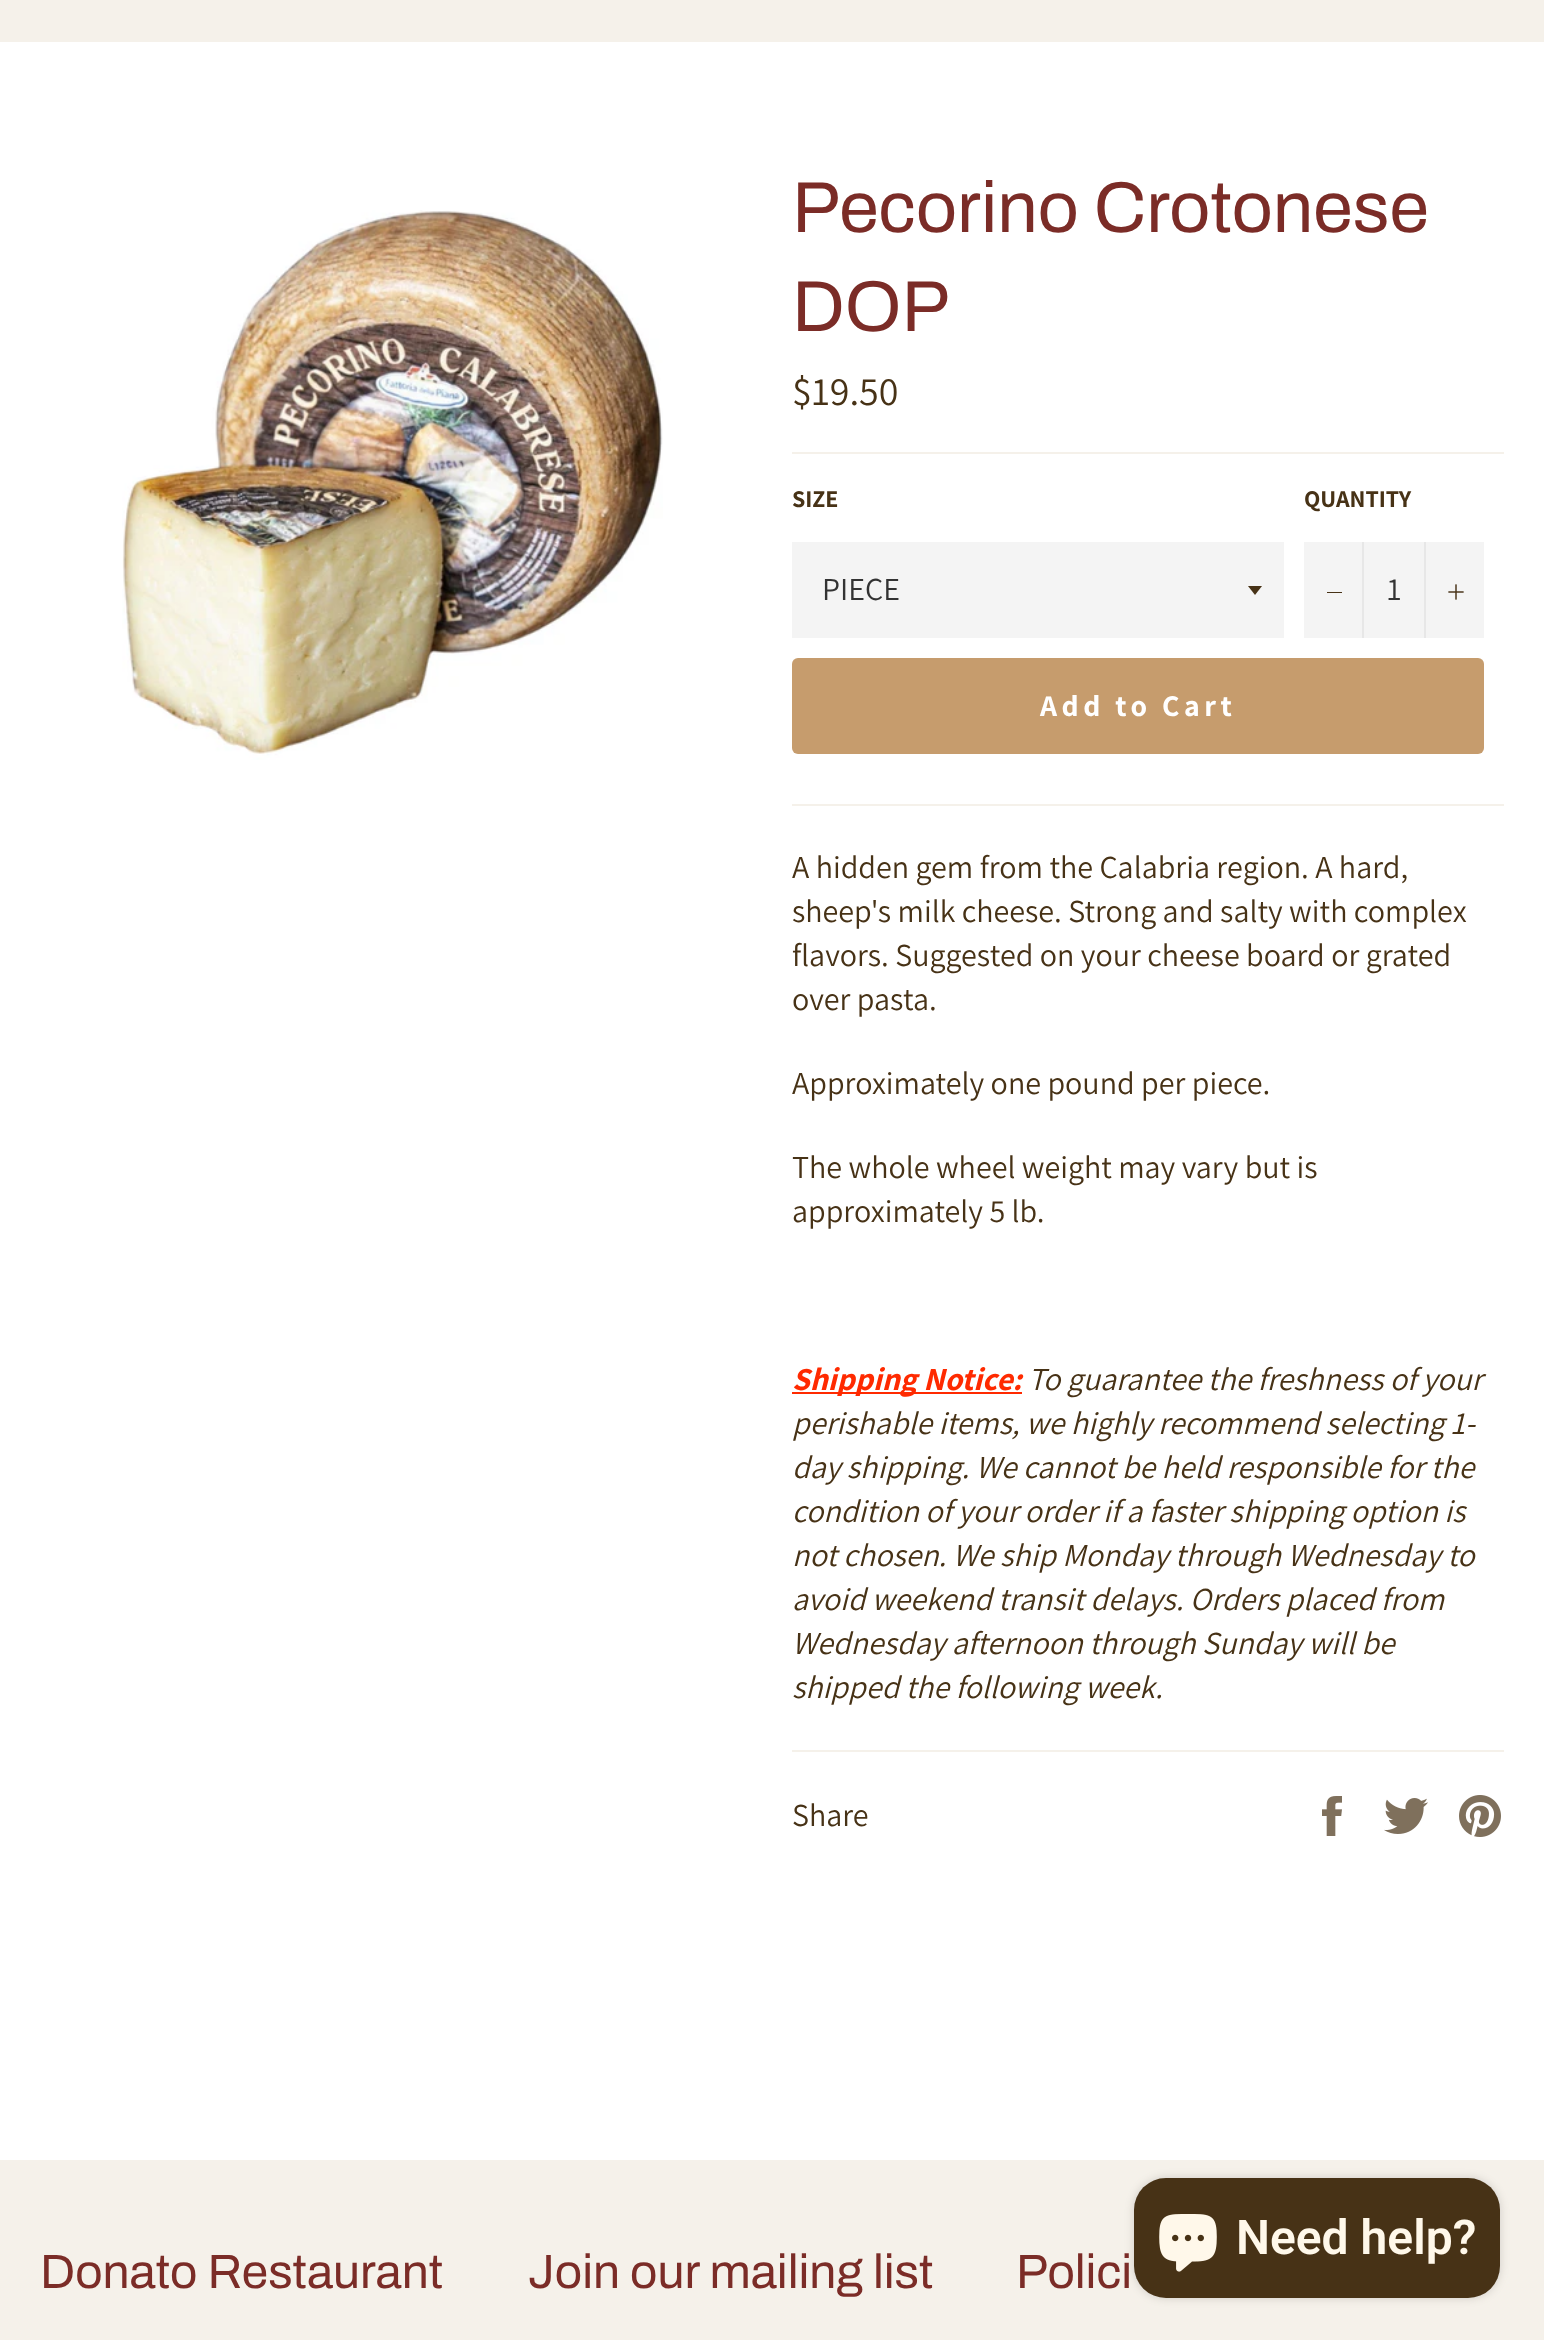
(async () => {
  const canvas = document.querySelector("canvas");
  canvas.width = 1544;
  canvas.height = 2340;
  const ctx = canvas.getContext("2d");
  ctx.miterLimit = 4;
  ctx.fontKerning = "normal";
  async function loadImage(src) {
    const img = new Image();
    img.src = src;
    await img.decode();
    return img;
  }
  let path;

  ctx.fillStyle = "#ffffff";
  ctx.fillRect(0, 0, 1544, 2340);
  ctx.fillStyle = "#f5f1ea";
  ctx.fillRect(0, 0, 1544, 42);
  ctx.drawImage(await loadImage("img/1.png"), 122, 210, 541, 550);
  ctx.fillRect(792, 452, 712, 2);
  ctx.fillStyle = "#f4f4f4";
  ctx.fillRect(792, 542, 492, 96);
  ctx.fillStyle = "#473216";
  path = new Path2D("M1248 586L1255 595L1262 586Z");
  ctx.fill(path);
  for (const [x, y, w, h, color] of [
    [1304, 542, 180, 96, "#f4f4f4"],
    [1362, 542, 2, 96, "#e7e7e7"],
    [1327, 592, 15, 1, "#473216"],
    [1424, 542, 2, 96, "#e7e7e7"],
  ]) {
    ctx.fillStyle = color;
    ctx.fillRect(x, y, w, h);
  }
  ctx.drawImage(await loadImage("img/2.png"), 1448, 584, 16, 16);
  ctx.fillStyle = "#c69c6d";
  ctx.beginPath();
  ctx.roundRect(792, 658, 692, 96, 6);
  ctx.fill();
  for (const [x, y, w, h, color] of [
    [792, 804, 712, 2, "#f5f1ea"],
    [792, 1392, 230, 2, "#ff2a00"],
    [792, 1750, 712, 2, "#f5f1ea"],
  ]) {
    ctx.fillStyle = color;
    ctx.fillRect(x, y, w, h);
  }
  ctx.drawImage(await loadImage("img/3.png"), 1322, 1796, 20, 40);
  ctx.drawImage(await loadImage("img/4.png"), 1384, 1798, 44, 36);
  ctx.drawImage(await loadImage("img/5.png"), 1459, 1795, 42, 42);
  ctx.fillRect(0, 2160, 1544, 180);
  ctx.fillStyle = "rgba(0, 0, 0, 0.15)";
  ctx.filter = "blur(5px)";
  ctx.beginPath();
  ctx.roundRect(1134, 2178, 366, 120, 32);
  ctx.fill();
  ctx.filter = "none";
  ctx.fillStyle = "#473216";
  ctx.beginPath();
  ctx.roundRect(1134, 2178, 366, 120, 32);
  ctx.fill();
  ctx.drawImage(await loadImage("img/6.png"), 1159, 2214, 58, 58);
  ctx.font = "72px Archivo";
  ctx.fillStyle = "#7b2c27";
  ctx.fillText("Pecorino Crotonese", 792, 232);
  ctx.fillText("DOP", 792, 331);
  ctx.font = "40px Assistant";
  ctx.fillStyle = "#473216";
  ctx.fillText("$19.50", 792, 405);
  ctx.font = "bold 24px Assistant";
  ctx.fillText("SIZE", 792, 507);
  ctx.font = "32px Assistant";
  ctx.fillStyle = "#333333";
  ctx.fillText("PIECE", 822, 600);
  ctx.font = "bold 24px Assistant";
  ctx.fillStyle = "#473216";
  ctx.fillText("QUANTITY", 1304, 507);
  ctx.font = "32px Assistant";
  ctx.fillStyle = "#333333";
  ctx.fillText("1", 1387, 600);
  ctx.letterSpacing = "4.5px";
  ctx.font = "bold 30px Assistant";
  ctx.fillStyle = "#ffffff";
  ctx.fillText("Add to Cart", 1040, 716);
  ctx.letterSpacing = "0px";
  ctx.font = "32px Assistant";
  ctx.fillStyle = "#473216";
  for (const [text, x, y] of [
    ["A hidden gem from the Calabria region. A hard,", 792, 878],
    ["sheep's milk cheese. Strong and salty with complex", 792, 922],
    ["flavors. Suggested on your cheese board or grated", 792, 966],
    ["over pasta.", 792, 1010],
    ["Approximately one pound per piece.", 792, 1094],
    ["The whole wheel weight may vary but is", 792, 1178],
    ["approximately 5 lb.", 792, 1222],
  ]) {
    ctx.fillText(text, x, y);
  }
  ctx.font = "italic bold 32px Assistant";
  ctx.fillStyle = "#ff2a00";
  ctx.fillText("Shipping Notice:", 792, 1390);
  ctx.font = "italic 32px Assistant";
  ctx.fillStyle = "#473216";
  for (const [text, x, y] of [
    ["To guarantee the freshness of your", 1028, 1390],
    ["perishable items, we highly recommend selecting 1-", 792, 1434],
    ["day shipping. We cannot be held responsible for the", 792, 1478],
    ["condition of your order if a faster shipping option is", 792, 1522],
    ["not chosen. We ship Monday through Wednesday to", 792, 1566],
    ["avoid weekend transit delays. Orders placed from", 792, 1610],
    ["Wednesday afternoon through Sunday will be", 792, 1654],
    ["shipped the following week.", 792, 1698],
  ]) {
    ctx.fillText(text, x, y);
  }
  ctx.font = "32px Assistant";
  ctx.fillText("Share", 792, 1826);
  ctx.font = "48px Archivo";
  ctx.fillStyle = "#7b2c27";
  for (const [text, x, y] of [
    ["Donato Restaurant", 40, 2288],
    ["Join our mailing list", 528, 2288],
    ["Polici", 1016, 2288],
  ]) {
    ctx.fillText(text, x, y);
  }
  ctx.font = "600 48px Roboto";
  ctx.fillStyle = "#fff8ea";
  ctx.fillText("Need help?", 1236, 2254);
})();
